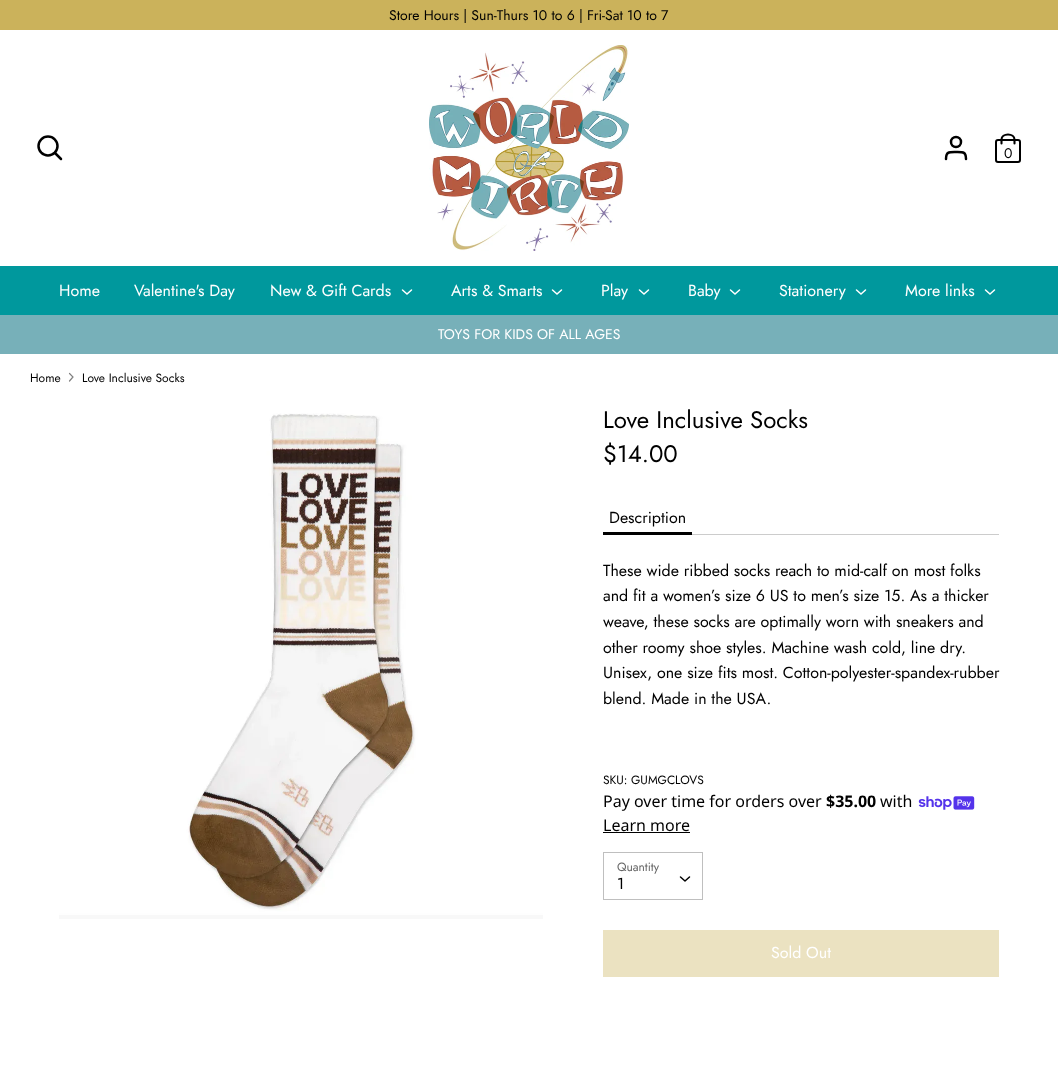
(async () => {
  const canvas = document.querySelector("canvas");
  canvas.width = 1058;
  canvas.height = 1088;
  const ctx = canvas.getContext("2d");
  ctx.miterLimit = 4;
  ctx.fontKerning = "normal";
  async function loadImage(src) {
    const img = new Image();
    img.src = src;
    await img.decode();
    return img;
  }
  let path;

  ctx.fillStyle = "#ffffff";
  ctx.fillRect(0, 0, 1058, 1088);
  ctx.fillStyle = "#cbb25b";
  ctx.fillRect(0, 0, 1058, 30);
  ctx.beginPath();
  ctx.arc(48, 146, 9.5, 0, Math.PI * 2);
  ctx.strokeStyle = "#000000";
  ctx.lineWidth = 2.5;
  ctx.stroke();
  path = new Path2D("M61 159L55 153");
  ctx.lineCap = "round";
  ctx.stroke(path);
  ctx.drawImage(await loadImage("img/1.png"), 429, 45, 200, 206);
  path = new Path2D("M966 159C966 151.5 963 152 956 152C949 152 946 151.5 946 159");
  ctx.stroke(path);
  ctx.beginPath();
  ctx.arc(956, 142, 5, 0, Math.PI * 2);
  ctx.stroke();
  ctx.beginPath();
  ctx.roundRect(996, 140, 24, 22, 2);
  ctx.lineWidth = 2;
  ctx.stroke();
  path = new Path2D("M1001.5 143.5V139.5C1001.5 136.5 1004.5 134.5 1008 134.5C1011.5 134.5 1014.5 136.5 1014.5 139.5V143.5");
  ctx.lineWidth = 2.1;
  ctx.stroke(path);
  ctx.fillStyle = "#00989d";
  ctx.fillRect(0, 266, 1058, 49);
  path = new Path2D("M402.5 290L407 294L411.5 290");
  ctx.strokeStyle = "#ffffff";
  ctx.lineWidth = 1.5;
  ctx.stroke(path);
  path = new Path2D("M552.5 290L557 294L561.5 290");
  ctx.stroke(path);
  path = new Path2D("M639.5 290L644 294L648.5 290");
  ctx.stroke(path);
  path = new Path2D("M730.5 290L735 294L739.5 290");
  ctx.stroke(path);
  path = new Path2D("M856.5 290L861 294L865.5 290");
  ctx.stroke(path);
  path = new Path2D("M985.5 290L990 294L994.5 290");
  ctx.stroke(path);
  ctx.fillStyle = "#77b0b9";
  ctx.fillRect(0, 315, 1058, 39);
  path = new Path2D("M69.5 381L73 377L69.5 373.5");
  ctx.strokeStyle = "#808080";
  ctx.lineWidth = 1.2;
  ctx.stroke(path);
  ctx.drawImage(await loadImage("img/2.png"), 59, 413, 484, 506);
  ctx.fillStyle = "#cccccc";
  ctx.fillRect(692, 534, 307, 1);
  ctx.fillStyle = "#000000";
  ctx.fillRect(603, 532, 89, 3);
  ctx.drawImage(await loadImage("img/3.png"), 918, 796, 57, 14);
  ctx.fillRect(603, 832, 87, 1);
  ctx.strokeStyle = "#bfbfbf";
  ctx.lineWidth = 1;
  ctx.strokeRect(603.5, 852.5, 99, 47);
  path = new Path2D("M680.5 877L685 881L689.5 877");
  ctx.strokeStyle = "#000000";
  ctx.lineWidth = 1.5;
  ctx.lineJoin = "round";
  ctx.stroke(path);
  ctx.strokeStyle = "#ebe2c1";
  ctx.lineWidth = 1;
  ctx.lineJoin = "miter";
  ctx.strokeRect(603.5, 930.5, 395, 46);
  ctx.fillStyle = "#ebe2c1";
  ctx.fillRect(604, 931, 394, 45);
  ctx.font = "14px Jost";
  ctx.fillStyle = "#000000";
  ctx.fillText("Store Hours | Sun-Thurs 10 to 6 | Fri-Sat 10 to 7", 389, 20);
  ctx.fillText("0", 1004, 158);
  ctx.font = "16px Jost";
  ctx.fillStyle = "#ffffff";
  for (const [text, x, y] of [
    ["Home", 59, 296],
    ["Valentine's Day", 134, 296],
    ["New & Gift Cards", 270, 296],
    ["Arts & Smarts", 451, 296],
    ["Play", 601, 296],
    ["Baby", 688, 296],
    ["Stationery", 779, 296],
    ["More links", 905, 296],
  ]) {
    ctx.fillText(text, x, y);
  }
  ctx.font = "14px Jost";
  ctx.fillText("TOYS FOR KIDS OF ALL AGES", 438, 339);
  ctx.font = "12px Jost";
  ctx.fillStyle = "#000000";
  ctx.fillText("Home", 30, 382);
  ctx.fillText("Love Inclusive Socks", 82, 382);
  ctx.font = "24px Jost";
  ctx.fillText("Love Inclusive Socks", 603, 428);
  ctx.fillText("$14.00", 603, 462);
  ctx.font = "16px Jost";
  for (const [text, x, y] of [
    ["Description", 609, 523],
    ["These wide ribbed socks reach to mid-calf on most folks", 603, 576],
    ["and fit a women’s size 6 US to men’s size 15. As a thicker", 603, 601],
    ["weave, these socks are optimally worn with sneakers and", 603, 627],
    ["other roomy shoe styles. Machine wash cold, line dry.", 603, 653],
    ["Unisex, one size fits most. Cotton-polyester-spandex-rubber", 603, 678],
    ["blend. Made in the USA.", 603, 704],
  ]) {
    ctx.fillText(text, x, y);
  }
  ctx.font = "12px Jost";
  ctx.fillText("SKU: GUMGCLOVS", 603, 784);
  ctx.font = "16px Noto Sans";
  ctx.fillText("Pay over time for orders over", 603, 807);
  ctx.font = "bold 16px Noto Sans";
  ctx.fillText("$35.00", 826, 807);
  ctx.font = "16px Noto Sans";
  ctx.fillText("with", 880, 807);
  ctx.fillText("Learn more", 603, 831);
  ctx.font = "12px Jost";
  ctx.fillStyle = "#666666";
  ctx.fillText("Quantity", 617, 871);
  ctx.font = "16px Jost";
  ctx.fillStyle = "#000000";
  ctx.fillText("1", 617, 889);
  ctx.fillStyle = "#ffffff";
  ctx.fillText("Sold Out", 771, 958);
})();
